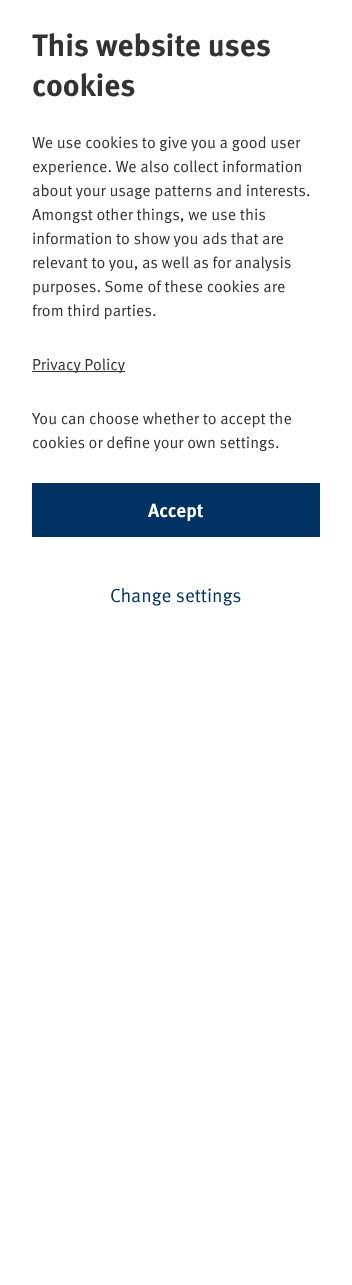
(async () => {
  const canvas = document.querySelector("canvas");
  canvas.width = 352;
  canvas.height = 1285;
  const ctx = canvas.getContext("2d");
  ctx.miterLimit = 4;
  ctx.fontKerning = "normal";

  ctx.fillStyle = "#ffffff";
  ctx.fillRect(0, 0, 352, 1285);
  ctx.fillStyle = "#333333";
  ctx.fillRect(32, 371, 93, 1);
  ctx.fillStyle = "#003363";
  ctx.fillRect(32, 483, 288, 54);
  ctx.font = "bold 31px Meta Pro";
  ctx.fillStyle = "#333333";
  ctx.fillText("This website uses", 32, 56);
  ctx.fillText("cookies", 32, 96);
  ctx.font = "16px Meta Pro";
  for (const [text, x, y] of [
    ["We use cookies to give you a good user", 32, 148],
    ["experience. We also collect information", 32, 172],
    ["about your usage patterns and interests.", 32, 196],
    ["Amongst other things, we use this", 32, 220],
    ["information to show you ads that are", 32, 244],
    ["relevant to you, as well as for analysis", 32, 268],
    ["purposes. Some of these cookies are", 32, 292],
    ["from third parties.", 32, 316],
    ["Privacy Policy", 32, 370],
    ["You can choose whether to accept the", 32, 424],
    ["cookies or define your own settings.", 32, 448],
  ]) {
    ctx.fillText(text, x, y);
  }
  ctx.font = "bold 19px Meta Pro";
  ctx.fillStyle = "#ffffff";
  ctx.fillText("Accept", 148, 517);
  ctx.font = "19px Meta Pro";
  ctx.fillStyle = "#003363";
  ctx.fillText("Change settings", 110, 602);
})();
